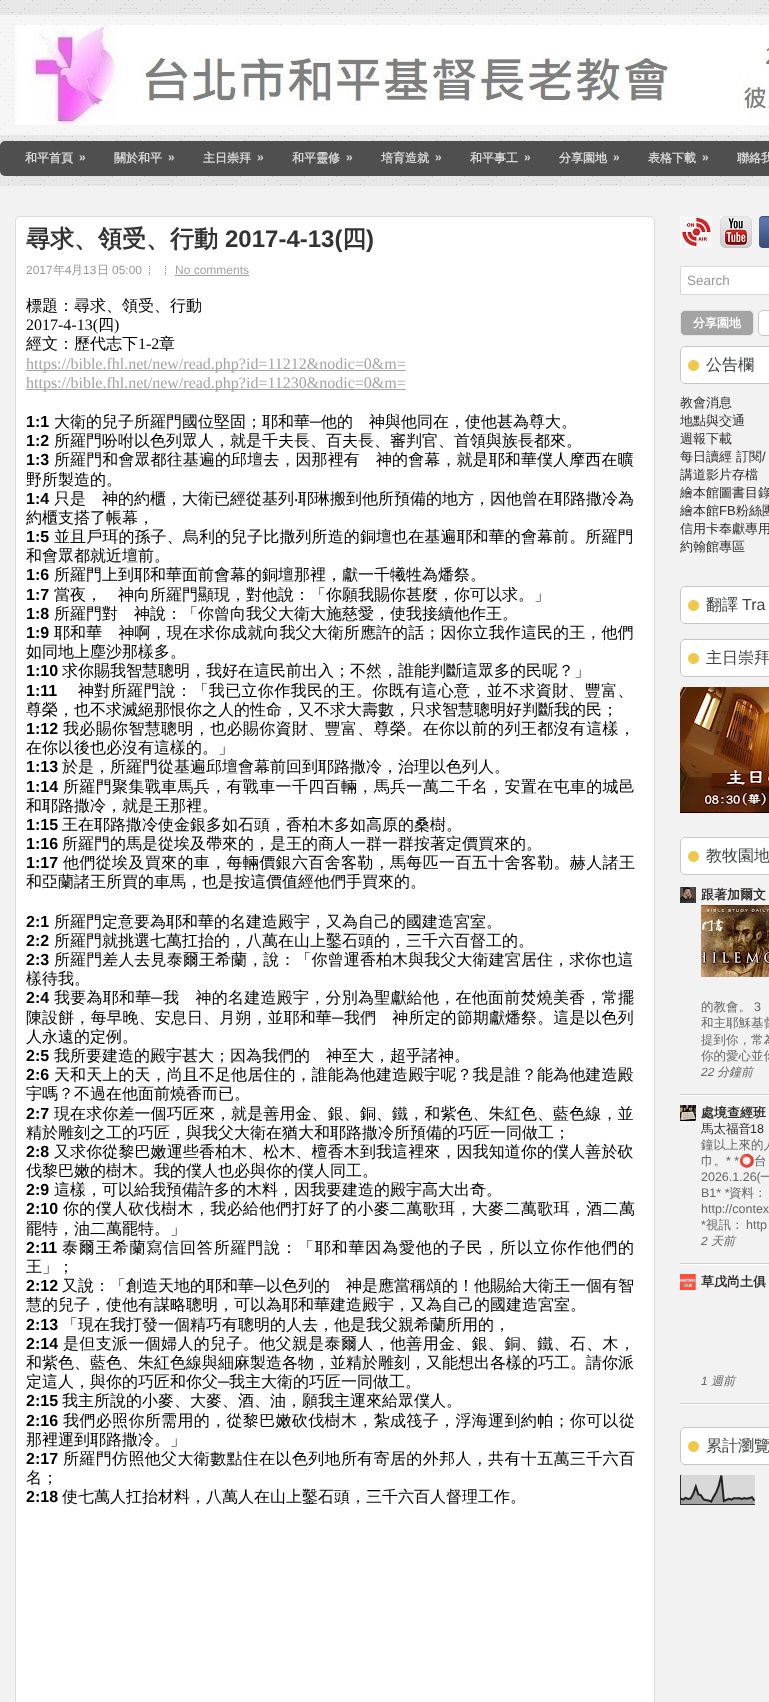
(async () => {
  const canvas = document.querySelector("canvas");
  canvas.width = 769;
  canvas.height = 1702;
  const ctx = canvas.getContext("2d");
  ctx.miterLimit = 4;
  ctx.fontKerning = "normal";
  async function loadImage(src) {
    const img = new Image();
    img.src = src;
    await img.decode();
    return img;
  }

  ctx.fillStyle = "#ffffff";
  ctx.fillRect(0, 0, 769, 1702);
  ctx.drawImage(await loadImage("img/1.png"), 0, 0, 769, 186);
  ctx.fillStyle = "rgba(255, 255, 255, 0.6)";
  ctx.fillRect(0, 15, 769, 120);
  ctx.drawImage(await loadImage("img/2.png"), 15, 25, 754, 100);
  ctx.fillStyle = "#4f4f4f";
  ctx.beginPath();
  ctx.roundRect(0, 141, 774, 35, 5);
  ctx.fill();
  ctx.fillStyle = "#f2f2f2";
  ctx.fillRect(0, 186, 769, 1516);
  ctx.fillStyle = "#ffffff";
  ctx.beginPath();
  ctx.roundRect(15.5, 216.5, 639, 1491, 4.5);
  ctx.fill();
  ctx.strokeStyle = "#dbdbdb";
  ctx.stroke();
  ctx.drawImage(await loadImage("img/3.png"), 149, 266, 1, 9);
  ctx.drawImage(await loadImage("img/3.png"), 165, 266, 1, 9);
  for (const [x, y, w, h, color] of [
    [175, 275, 74, 1, "#a4a4a4"],
    [26, 370, 380, 1, "#a4a4a4"],
    [26, 389, 380, 1, "#a4a4a4"],
  ]) {
    ctx.fillStyle = color;
    ctx.fillRect(x, y, w, h);
  }
  ctx.drawImage(await loadImage("img/4.png"), 680, 216, 32, 32);
  ctx.drawImage(await loadImage("img/5.png"), 720, 216, 32, 32);
  ctx.drawImage(await loadImage("img/6.png"), 759, 216, 10, 32);
  ctx.fillStyle = "#ffffff";
  ctx.beginPath();
  ctx.rect(680.5, 266.5, 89, 28);
  ctx.fill();
  ctx.strokeStyle = "#d8d8d8";
  ctx.stroke();
  ctx.fillStyle = "#a4a4a4";
  ctx.beginPath();
  ctx.roundRect(680.5, 310.5, 73, 25, 4.5);
  ctx.fill();
  ctx.strokeStyle = "#e6e6e6";
  ctx.stroke();
  ctx.fillStyle = "#ffffff";
  ctx.beginPath();
  ctx.roundRect(758.5, 310.5, 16, 25, 4.5);
  ctx.fill();
  ctx.strokeStyle = "#c7c7c7";
  ctx.stroke();
  ctx.beginPath();
  ctx.roundRect(680, 346, 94, 38, 5);
  ctx.fill();
  ctx.drawImage(await loadImage("img/7.png"), 688, 360, 11, 11);
  ctx.beginPath();
  ctx.roundRect(680.5, 346.5, 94, 37, 4.5);
  ctx.stroke();
  ctx.beginPath();
  ctx.roundRect(680, 586, 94, 38, 5);
  ctx.fill();
  ctx.drawImage(await loadImage("img/7.png"), 688, 600, 11, 11);
  ctx.beginPath();
  ctx.roundRect(680.5, 586.5, 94, 37, 4.5);
  ctx.stroke();
  ctx.beginPath();
  ctx.roundRect(680, 639, 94, 38, 5);
  ctx.fill();
  ctx.drawImage(await loadImage("img/7.png"), 688, 653, 11, 11);
  ctx.beginPath();
  ctx.roundRect(680.5, 639.5, 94, 37, 4.5);
  ctx.stroke();
  ctx.drawImage(await loadImage("img/8.png"), 680, 687, 89, 127);
  ctx.beginPath();
  ctx.roundRect(680, 837, 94, 38, 5);
  ctx.fill();
  ctx.drawImage(await loadImage("img/7.png"), 688, 851, 11, 11);
  ctx.beginPath();
  ctx.roundRect(680.5, 837.5, 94, 37, 4.5);
  ctx.stroke();
  ctx.fillRect(680, 1095, 89, 1);
  ctx.fillStyle = "#cdcdcd";
  ctx.fillRect(680, 1094, 89, 1);
  ctx.drawImage(await loadImage("img/9.png"), 680, 887, 16, 16);
  ctx.drawImage(await loadImage("img/10.png"), 701, 905, 68, 72);
  ctx.fillStyle = "#ffffff";
  ctx.fillRect(680, 1264, 89, 1);
  ctx.fillStyle = "#cdcdcd";
  ctx.fillRect(680, 1263, 89, 1);
  ctx.drawImage(await loadImage("img/11.png"), 680, 1105, 16, 16);
  ctx.fillStyle = "#ffffff";
  ctx.fillRect(680, 1404, 89, 1);
  ctx.fillStyle = "#cdcdcd";
  ctx.fillRect(680, 1403, 89, 1);
  ctx.drawImage(await loadImage("img/12.png"), 680, 1274, 16, 16);
  ctx.fillStyle = "#ffffff";
  ctx.beginPath();
  ctx.roundRect(680, 1427, 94, 38, 5);
  ctx.fill();
  ctx.drawImage(await loadImage("img/7.png"), 688, 1441, 11, 11);
  ctx.beginPath();
  ctx.roundRect(680.5, 1427.5, 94, 37, 4.5);
  ctx.stroke();
  ctx.drawImage(await loadImage("img/13.png"), 680, 1475, 75, 30);
  ctx.font = "bold 12px WenQuanYi Zen Hei";
  ctx.fillStyle = "#d8d8d8";
  ctx.fillText("和平首頁", 25, 162);
  ctx.font = "bold 12px Liberation Sans";
  ctx.fillText("»", 79, 161);
  ctx.font = "bold 12px WenQuanYi Zen Hei";
  ctx.fillText("關於和平", 114, 162);
  ctx.font = "bold 12px Liberation Sans";
  ctx.fillText("»", 168, 161);
  ctx.font = "bold 12px WenQuanYi Zen Hei";
  ctx.fillText("主日崇拜", 203, 162);
  ctx.font = "bold 12px Liberation Sans";
  ctx.fillText("»", 257, 161);
  ctx.font = "bold 12px WenQuanYi Zen Hei";
  ctx.fillText("和平靈修", 292, 162);
  ctx.font = "bold 12px Liberation Sans";
  ctx.fillText("»", 346, 161);
  ctx.font = "bold 12px WenQuanYi Zen Hei";
  ctx.fillText("培育造就", 381, 162);
  ctx.font = "bold 12px Liberation Sans";
  ctx.fillText("»", 435, 161);
  ctx.font = "bold 12px WenQuanYi Zen Hei";
  ctx.fillText("和平事工", 470, 162);
  ctx.font = "bold 12px Liberation Sans";
  ctx.fillText("»", 524, 161);
  ctx.font = "bold 12px WenQuanYi Zen Hei";
  ctx.fillText("分享園地", 559, 162);
  ctx.font = "bold 12px Liberation Sans";
  ctx.fillText("»", 613, 161);
  ctx.font = "bold 12px WenQuanYi Zen Hei";
  ctx.fillText("表格下載", 648, 162);
  ctx.font = "bold 12px Liberation Sans";
  ctx.fillText("»", 702, 161);
  ctx.font = "bold 12px WenQuanYi Zen Hei";
  ctx.fillText("聯絡我", 737, 162);
  ctx.font = "bold 24px WenQuanYi Zen Hei";
  ctx.fillStyle = "#333333";
  ctx.fillText("尋求、領受、行動", 26, 247);
  ctx.font = "bold 24px Liberation Sans";
  ctx.fillText("2017-4-13(", 225, 247);
  ctx.font = "bold 24px WenQuanYi Zen Hei";
  ctx.fillText("四", 342, 247);
  ctx.font = "bold 24px Liberation Sans";
  ctx.fillText(")", 366, 247);
  ctx.font = "12px Liberation Sans";
  ctx.fillStyle = "#999999";
  ctx.fillText("2017", 26, 274);
  ctx.font = "500 12px WenQuanYi Zen Hei";
  ctx.fillText("年", 53, 274);
  ctx.font = "12px Liberation Sans";
  ctx.fillText("4", 65, 274);
  ctx.font = "500 12px WenQuanYi Zen Hei";
  ctx.fillText("月", 71, 274);
  ctx.font = "12px Liberation Sans";
  ctx.fillText("13", 83, 274);
  ctx.font = "500 12px WenQuanYi Zen Hei";
  ctx.fillText("日", 97, 274);
  ctx.font = "12px Liberation Sans";
  ctx.fillText("05:00", 112, 274);
  ctx.fillStyle = "#a4a4a4";
  ctx.fillText("No comments", 175, 274);
  ctx.font = "500 16px WenQuanYi Zen Hei";
  ctx.fillStyle = "#000000";
  ctx.fillText("標題：尋求、領受、行動", 26, 311);
  ctx.font = "16px Liberation Serif";
  ctx.fillText("2017-4-13(", 26, 330);
  ctx.font = "500 16px WenQuanYi Zen Hei";
  ctx.fillText("四", 98, 330);
  ctx.font = "16px Liberation Serif";
  ctx.fillText(")", 114, 330);
  ctx.font = "500 16px WenQuanYi Zen Hei";
  ctx.fillText("經文：歷代志下", 26, 349);
  ctx.font = "16px Liberation Serif";
  ctx.fillText("1-2", 138, 349);
  ctx.font = "500 16px WenQuanYi Zen Hei";
  ctx.fillText("章", 159, 349);
  ctx.font = "16px Liberation Serif";
  ctx.fillStyle = "#a4a4a4";
  ctx.fillText("https://bible.fhl.net/new/read.php?id=11212&nodic=0&m=", 26, 369);
  ctx.fillText("https://bible.fhl.net/new/read.php?id=11230&nodic=0&m=", 26, 388);
  ctx.font = "bold 16px Liberation Sans";
  ctx.fillStyle = "#000000";
  ctx.fillText("1:1", 26, 427);
  ctx.font = "500 16px WenQuanYi Zen Hei";
  ctx.fillText("大衛的兒子所羅門國位堅固；耶和華", 54, 427);
  ctx.font = "16px Liberation Sans";
  ctx.fillText("─", 310, 427);
  ctx.font = "500 16px WenQuanYi Zen Hei";
  ctx.fillText("他的　神與他同在，使他甚為尊大。", 321, 427);
  ctx.font = "bold 16px Liberation Sans";
  ctx.fillText("1:2", 26, 446);
  ctx.font = "500 16px WenQuanYi Zen Hei";
  ctx.fillText("所羅門吩咐以色列眾人，就是千夫長、百夫長、審判官、首領與族長都來。", 54, 446);
  ctx.font = "bold 16px Liberation Sans";
  ctx.fillText("1:3", 26, 465);
  ctx.letterSpacing = "0.1px";
  ctx.font = "500 16px WenQuanYi Zen Hei";
  ctx.fillText("所羅門和會眾都往基遍的邱壇去，因那裡有　神的會幕，就是耶和華僕人摩西在曠", 54, 465);
  ctx.letterSpacing = "0px";
  ctx.fillText("野所製造的。", 26, 485);
  ctx.font = "bold 16px Liberation Sans";
  ctx.fillText("1:4", 26, 504);
  ctx.font = "500 16px WenQuanYi Zen Hei";
  ctx.fillText("只是　神的約櫃，大衛已經從基列", 54, 504);
  ctx.font = "16px Noto Sans";
  ctx.fillText("‧", 294, 504);
  ctx.font = "500 16px WenQuanYi Zen Hei";
  ctx.fillText("耶琳搬到他所預備的地方，因他曾在耶路撒冷為", 298, 504);
  ctx.fillText("約櫃支搭了帳幕，", 26, 523);
  ctx.font = "bold 16px Liberation Sans";
  ctx.fillText("1:5", 26, 542);
  ctx.letterSpacing = "0.1px";
  ctx.font = "500 16px WenQuanYi Zen Hei";
  ctx.fillText("並且戶珥的孫子、烏利的兒子比撒列所造的銅壇也在基遍耶和華的會幕前。所羅門", 54, 542);
  ctx.letterSpacing = "0px";
  ctx.fillText("和會眾都就近壇前。", 26, 561);
  ctx.font = "bold 16px Liberation Sans";
  ctx.fillText("1:6", 26, 580);
  ctx.font = "500 16px WenQuanYi Zen Hei";
  ctx.fillText("所羅門上到耶和華面前會幕的銅壇那裡，獻一千犧牲為燔祭。", 54, 580);
  ctx.font = "bold 16px Liberation Sans";
  ctx.fillText("1:7", 26, 600);
  ctx.font = "500 16px WenQuanYi Zen Hei";
  ctx.fillText("當夜，　神向所羅門顯現，對他說：「你願我賜你甚麼，你可以求。」", 54, 600);
  ctx.font = "bold 16px Liberation Sans";
  ctx.fillText("1:8", 26, 619);
  ctx.font = "500 16px WenQuanYi Zen Hei";
  ctx.fillText("所羅門對　神說：「你曾向我父大衛大施慈愛，使我接續他作王。", 54, 619);
  ctx.font = "bold 16px Liberation Sans";
  ctx.fillText("1:9", 26, 638);
  ctx.letterSpacing = "0.1px";
  ctx.font = "500 16px WenQuanYi Zen Hei";
  ctx.fillText("耶和華　神啊，現在求你成就向我父大衛所應許的話；因你立我作這民的王，他們", 54, 638);
  ctx.letterSpacing = "0px";
  ctx.fillText("如同地上塵沙那樣多。", 26, 657);
  ctx.font = "bold 16px Liberation Sans";
  ctx.fillText("1:10", 26, 676);
  ctx.font = "500 16px WenQuanYi Zen Hei";
  ctx.fillText("求你賜我智慧聰明，我好在這民前出入；不然，誰能判斷這眾多的民呢？」", 62, 676);
  ctx.font = "bold 16px Liberation Sans";
  ctx.fillText("1:11", 26, 696);
  ctx.letterSpacing = "0.35px";
  ctx.font = "500 16px WenQuanYi Zen Hei";
  ctx.fillText("神對所羅門說：「我已立你作我民的王。你既有這心意，並不求資財、豐富、", 78, 696);
  ctx.letterSpacing = "0px";
  ctx.fillText("尊榮，也不求滅絕那恨你之人的性命，又不求大壽數，只求智慧聰明好判斷我的民；", 26, 715);
  ctx.font = "bold 16px Liberation Sans";
  ctx.fillText("1:12", 26, 734);
  ctx.letterSpacing = "0.35px";
  ctx.font = "500 16px WenQuanYi Zen Hei";
  ctx.fillText("我必賜你智慧聰明，也必賜你資財、豐富、尊榮。在你以前的列王都沒有這樣，", 63, 734);
  ctx.letterSpacing = "0px";
  ctx.fillText("在你以後也必沒有這樣的。」", 26, 753);
  ctx.font = "bold 16px Liberation Sans";
  ctx.fillText("1:13", 26, 772);
  ctx.font = "500 16px WenQuanYi Zen Hei";
  ctx.fillText("於是，所羅門從基遍邱壇會幕前回到耶路撒冷，治理以色列人。", 62, 772);
  ctx.font = "bold 16px Liberation Sans";
  ctx.fillText("1:14", 26, 792);
  ctx.letterSpacing = "0.35px";
  ctx.font = "500 16px WenQuanYi Zen Hei";
  ctx.fillText("所羅門聚集戰車馬兵，有戰車一千四百輛，馬兵一萬二千名，安置在屯車的城邑", 63, 792);
  ctx.letterSpacing = "0px";
  ctx.fillText("和耶路撒冷，就是王那裡。", 26, 811);
  ctx.font = "bold 16px Liberation Sans";
  ctx.fillText("1:15", 26, 830);
  ctx.font = "500 16px WenQuanYi Zen Hei";
  ctx.fillText("王在耶路撒冷使金銀多如石頭，香柏木多如高原的桑樹。", 62, 830);
  ctx.font = "bold 16px Liberation Sans";
  ctx.fillText("1:16", 26, 849);
  ctx.font = "500 16px WenQuanYi Zen Hei";
  ctx.fillText("所羅門的馬是從埃及帶來的，是王的商人一群一群按著定價買來的。", 62, 849);
  ctx.font = "bold 16px Liberation Sans";
  ctx.fillText("1:17", 26, 868);
  ctx.letterSpacing = "0.35px";
  ctx.font = "500 16px WenQuanYi Zen Hei";
  ctx.fillText("他們從埃及買來的車，每輛價銀六百舍客勒，馬每匹一百五十舍客勒。赫人諸王", 63, 868);
  ctx.letterSpacing = "0px";
  ctx.fillText("和亞蘭諸王所買的車馬，也是按這價值經他們手買來的。", 26, 887);
  ctx.font = "bold 16px Liberation Sans";
  ctx.fillText("2:1", 26, 927);
  ctx.font = "500 16px WenQuanYi Zen Hei";
  ctx.fillText("所羅門定意要為耶和華的名建造殿宇，又為自己的國建造宮室。", 54, 927);
  ctx.font = "bold 16px Liberation Sans";
  ctx.fillText("2:2", 26, 946);
  ctx.font = "500 16px WenQuanYi Zen Hei";
  ctx.fillText("所羅門就挑選七萬扛抬的，八萬在山上鑿石頭的，三千六百督工的。", 54, 946);
  ctx.font = "bold 16px Liberation Sans";
  ctx.fillText("2:3", 26, 965);
  ctx.letterSpacing = "0.1px";
  ctx.font = "500 16px WenQuanYi Zen Hei";
  ctx.fillText("所羅門差人去見泰爾王希蘭，說：「你曾運香柏木與我父大衛建宮居住，求你也這", 54, 965);
  ctx.letterSpacing = "0px";
  ctx.fillText("樣待我。", 26, 984);
  ctx.font = "bold 16px Liberation Sans";
  ctx.fillText("2:4", 26, 1003);
  ctx.letterSpacing = "0.25px";
  ctx.font = "500 16px WenQuanYi Zen Hei";
  ctx.fillText("我要為耶和華", 54, 1003);
  ctx.font = "16px Liberation Sans";
  ctx.fillText("─", 151, 1003);
  ctx.font = "500 16px WenQuanYi Zen Hei";
  ctx.fillText("我　神的名建造殿宇，分別為聖獻給他，在他面前焚燒美香，常擺", 163, 1003);
  ctx.letterSpacing = "0.1px";
  ctx.fillText("陳設餅，每早晚、安息日、月朔，並耶和華", 26, 1023);
  ctx.font = "16px Liberation Sans";
  ctx.fillText("─", 332, 1023);
  ctx.font = "500 16px WenQuanYi Zen Hei";
  ctx.fillText("我們　神所定的節期獻燔祭。這是以色列", 344, 1023);
  ctx.letterSpacing = "0px";
  ctx.fillText("人永遠的定例。", 26, 1042);
  ctx.font = "bold 16px Liberation Sans";
  ctx.fillText("2:5", 26, 1061);
  ctx.font = "500 16px WenQuanYi Zen Hei";
  ctx.fillText("我所要建造的殿宇甚大；因為我們的　神至大，超乎諸神。", 54, 1061);
  ctx.font = "bold 16px Liberation Sans";
  ctx.fillText("2:6", 26, 1080);
  ctx.letterSpacing = "0.1px";
  ctx.font = "500 16px WenQuanYi Zen Hei";
  ctx.fillText("天和天上的天，尚且不足他居住的，誰能為他建造殿宇呢？我是誰？能為他建造殿", 54, 1080);
  ctx.letterSpacing = "0px";
  ctx.fillText("宇嗎？不過在他面前燒香而已。", 26, 1099);
  ctx.font = "bold 16px Liberation Sans";
  ctx.fillText("2:7", 26, 1119);
  ctx.letterSpacing = "0.1px";
  ctx.font = "500 16px WenQuanYi Zen Hei";
  ctx.fillText("現在求你差一個巧匠來，就是善用金、銀、銅、鐵，和紫色、朱紅色、藍色線，並", 54, 1119);
  ctx.letterSpacing = "0px";
  ctx.fillText("精於雕刻之工的巧匠，與我父大衛在猶大和耶路撒冷所預備的巧匠一同做工；", 26, 1138);
  ctx.font = "bold 16px Liberation Sans";
  ctx.fillText("2:8", 26, 1157);
  ctx.letterSpacing = "0.1px";
  ctx.font = "500 16px WenQuanYi Zen Hei";
  ctx.fillText("又求你從黎巴嫩運些香柏木、松木、檀香木到我這裡來，因我知道你的僕人善於砍", 54, 1157);
  ctx.letterSpacing = "0px";
  ctx.fillText("伐黎巴嫩的樹木。我的僕人也必與你的僕人同工。", 26, 1176);
  ctx.font = "bold 16px Liberation Sans";
  ctx.fillText("2:9", 26, 1195);
  ctx.font = "500 16px WenQuanYi Zen Hei";
  ctx.fillText("這樣，可以給我預備許多的木料，因我要建造的殿宇高大出奇。", 54, 1195);
  ctx.font = "bold 16px Liberation Sans";
  ctx.fillText("2:10", 26, 1214);
  ctx.letterSpacing = "0.35px";
  ctx.font = "500 16px WenQuanYi Zen Hei";
  ctx.fillText("你的僕人砍伐樹木，我必給他們打好了的小麥二萬歌珥，大麥二萬歌珥，酒二萬", 63, 1214);
  ctx.letterSpacing = "0px";
  ctx.fillText("罷特，油二萬罷特。」", 26, 1234);
  ctx.font = "bold 16px Liberation Sans";
  ctx.fillText("2:11", 26, 1253);
  ctx.letterSpacing = "0.85px";
  ctx.font = "500 16px WenQuanYi Zen Hei";
  ctx.fillText("泰爾王希蘭寫信回答所羅門說：「耶和華因為愛他的子民，所以立你作他們的", 62, 1253);
  ctx.letterSpacing = "0px";
  ctx.fillText("王」；", 26, 1272);
  ctx.font = "bold 16px Liberation Sans";
  ctx.fillText("2:12", 26, 1291);
  ctx.font = "500 16px WenQuanYi Zen Hei";
  ctx.fillText("又說：「創造天地的耶和華", 62, 1291);
  ctx.font = "16px Liberation Sans";
  ctx.fillText("─", 254, 1291);
  ctx.font = "500 16px WenQuanYi Zen Hei";
  ctx.fillText("以色列的　神是應當稱頌的！他賜給大衛王一個有智", 266, 1291);
  ctx.fillText("慧的兒子，使他有謀略聰明，可以為耶和華建造殿宇，又為自己的國建造宮室。", 26, 1310);
  ctx.font = "bold 16px Liberation Sans";
  ctx.fillText("2:13", 26, 1330);
  ctx.font = "500 16px WenQuanYi Zen Hei";
  ctx.fillText("「現在我打發一個精巧有聰明的人去，他是我父親希蘭所用的，", 62, 1330);
  ctx.font = "bold 16px Liberation Sans";
  ctx.fillText("2:14", 26, 1349);
  ctx.letterSpacing = "0.35px";
  ctx.font = "500 16px WenQuanYi Zen Hei";
  ctx.fillText("是但支派一個婦人的兒子。他父親是泰爾人，他善用金、銀、銅、鐵、石、木，", 63, 1349);
  ctx.letterSpacing = "0px";
  ctx.fillText("和紫色、藍色、朱紅色線與細麻製造各物，並精於雕刻，又能想出各樣的巧工。請你派", 26, 1368);
  ctx.fillText("定這人，與你的巧匠和你父", 26, 1387);
  ctx.font = "16px Liberation Sans";
  ctx.fillText("─", 218, 1387);
  ctx.font = "500 16px WenQuanYi Zen Hei";
  ctx.fillText("我主大衛的巧匠一同做工。", 229, 1387);
  ctx.font = "bold 16px Liberation Sans";
  ctx.fillText("2:15", 26, 1406);
  ctx.font = "500 16px WenQuanYi Zen Hei";
  ctx.fillText("我主所說的小麥、大麥、酒、油，願我主運來給眾僕人。", 62, 1406);
  ctx.font = "bold 16px Liberation Sans";
  ctx.fillText("2:16", 26, 1426);
  ctx.letterSpacing = "0.35px";
  ctx.font = "500 16px WenQuanYi Zen Hei";
  ctx.fillText("我們必照你所需用的，從黎巴嫩砍伐樹木，紮成筏子，浮海運到約帕；你可以從", 63, 1426);
  ctx.letterSpacing = "0px";
  ctx.fillText("那裡運到耶路撒冷。」", 26, 1445);
  ctx.font = "bold 16px Liberation Sans";
  ctx.fillText("2:17", 26, 1464);
  ctx.letterSpacing = "0.35px";
  ctx.font = "500 16px WenQuanYi Zen Hei";
  ctx.fillText("所羅門仿照他父大衛數點住在以色列地所有寄居的外邦人，共有十五萬三千六百", 63, 1464);
  ctx.letterSpacing = "0px";
  ctx.fillText("名；", 26, 1483);
  ctx.font = "bold 16px Liberation Sans";
  ctx.fillText("2:18", 26, 1502);
  ctx.font = "500 16px WenQuanYi Zen Hei";
  ctx.fillText("使七萬人扛抬材料，八萬人在山上鑿石頭，三千六百人督理工作。", 62, 1502);
  ctx.font = "13.5px Liberation Sans";
  ctx.fillStyle = "#999999";
  ctx.fillText("Search", 687, 285);
  ctx.font = "bold 12px WenQuanYi Zen Hei";
  ctx.fillStyle = "#ffffff";
  ctx.fillText("分享園地", 693, 327);
  ctx.font = "500 16px WenQuanYi Zen Hei";
  ctx.fillStyle = "#414445";
  ctx.fillText("公告欄", 706, 370);
  ctx.font = "500 13px WenQuanYi Zen Hei";
  ctx.fillStyle = "#302b2b";
  for (const [text, x, y] of [
    ["教會消息", 680, 407],
    ["地點與交通", 680, 425],
    ["週報下載", 680, 443],
    ["每日讀經 訂閱", 680, 461],
  ]) {
    ctx.fillText(text, x, y);
  }
  ctx.font = "13px Liberation Sans";
  ctx.fillText("/", 762, 461);
  ctx.font = "500 13px WenQuanYi Zen Hei";
  for (const [text, x, y] of [
    ["講道影片存檔", 680, 479],
    ["繪本館圖書目錄", 680, 497],
    ["繪本館", 680, 515],
  ]) {
    ctx.fillText(text, x, y);
  }
  ctx.font = "13px Liberation Sans";
  ctx.fillText("FB", 719, 515);
  ctx.font = "500 13px WenQuanYi Zen Hei";
  for (const [text, x, y] of [
    ["粉絲團", 736, 515],
    ["信用卡奉獻專用", 680, 533],
    ["約翰館專區", 680, 551],
  ]) {
    ctx.fillText(text, x, y);
  }
  ctx.font = "500 16px WenQuanYi Zen Hei";
  ctx.fillStyle = "#414445";
  ctx.fillText("翻譯", 706, 610);
  ctx.font = "16px Liberation Sans";
  ctx.fillText("Tra", 742, 610);
  ctx.font = "500 16px WenQuanYi Zen Hei";
  ctx.fillText("主日崇拜", 706, 663);
  ctx.fillText("教牧園地", 706, 861);
  ctx.font = "bold 13px WenQuanYi Zen Hei";
  ctx.fillStyle = "#302b2b";
  ctx.fillText("跟著加爾文", 701, 899);
  ctx.font = "500 12.5px WenQuanYi Zen Hei";
  ctx.fillStyle = "#666666";
  ctx.fillText("的教會。", 701, 1011);
  ctx.font = "12.5px Liberation Sans";
  ctx.fillText("3", 754, 1011);
  ctx.font = "500 12.5px WenQuanYi Zen Hei";
  for (const [text, x, y] of [
    ["和主耶穌基督", 701, 1027],
    ["提到你，常為", 701, 1044],
    ["你的愛心並你", 701, 1060],
  ]) {
    ctx.fillText(text, x, y);
  }
  ctx.font = "italic 12px Liberation Sans";
  ctx.fillText("22", 701, 1076);
  ctx.font = "italic 500 12px WenQuanYi Zen Hei";
  ctx.fillText("分鐘前", 717, 1076);
  ctx.font = "bold 13px WenQuanYi Zen Hei";
  ctx.fillStyle = "#302b2b";
  ctx.fillText("處境查經班", 701, 1117);
  ctx.font = "500 12.5px WenQuanYi Zen Hei";
  ctx.fillText("馬太福音", 701, 1133);
  ctx.font = "12.5px Liberation Sans";
  ctx.fillText("18", 750, 1133);
  ctx.font = "500 12.5px WenQuanYi Zen Hei";
  ctx.fillStyle = "#666666";
  ctx.fillText("鐘以上來的人", 701, 1149);
  ctx.fillText("巾。", 701, 1165);
  ctx.font = "12.5px Liberation Sans";
  ctx.fillText("* *", 726, 1165);
  ctx.font = "12.5px Noto Color Emoji";
  ctx.fillText("⭕", 739, 1165);
  ctx.font = "500 12.5px WenQuanYi Zen Hei";
  ctx.fillText("台", 754, 1165);
  ctx.font = "12.5px Liberation Sans";
  ctx.fillText("2026.1.26(", 701, 1181);
  ctx.font = "500 12.5px WenQuanYi Zen Hei";
  ctx.fillText("一", 760, 1181);
  ctx.font = "12.5px Liberation Sans";
  ctx.fillText("B1* *", 701, 1197);
  ctx.font = "500 12.5px WenQuanYi Zen Hei";
  ctx.fillText("資料：", 729, 1197);
  ctx.font = "12.5px Liberation Sans";
  ctx.fillText("http://contex", 701, 1213);
  ctx.fillText("*", 701, 1229);
  ctx.font = "500 12.5px WenQuanYi Zen Hei";
  ctx.fillText("視訊：", 706, 1229);
  ctx.font = "12.5px Liberation Sans";
  ctx.fillText("http", 746, 1229);
  ctx.font = "italic 12px Liberation Sans";
  ctx.fillText("2", 701, 1245);
  ctx.font = "italic 500 12px WenQuanYi Zen Hei";
  ctx.fillText("天前", 711, 1245);
  ctx.font = "bold 13px WenQuanYi Zen Hei";
  ctx.fillStyle = "#302b2b";
  ctx.fillText("草戊尚土俱", 701, 1286);
  ctx.font = "italic 12px Liberation Sans";
  ctx.fillStyle = "#666666";
  ctx.fillText("1", 701, 1385);
  ctx.font = "italic 500 12px WenQuanYi Zen Hei";
  ctx.fillText("週前", 711, 1385);
  ctx.font = "500 16px WenQuanYi Zen Hei";
  ctx.fillStyle = "#414445";
  ctx.fillText("累計瀏覽", 706, 1451);
})();
